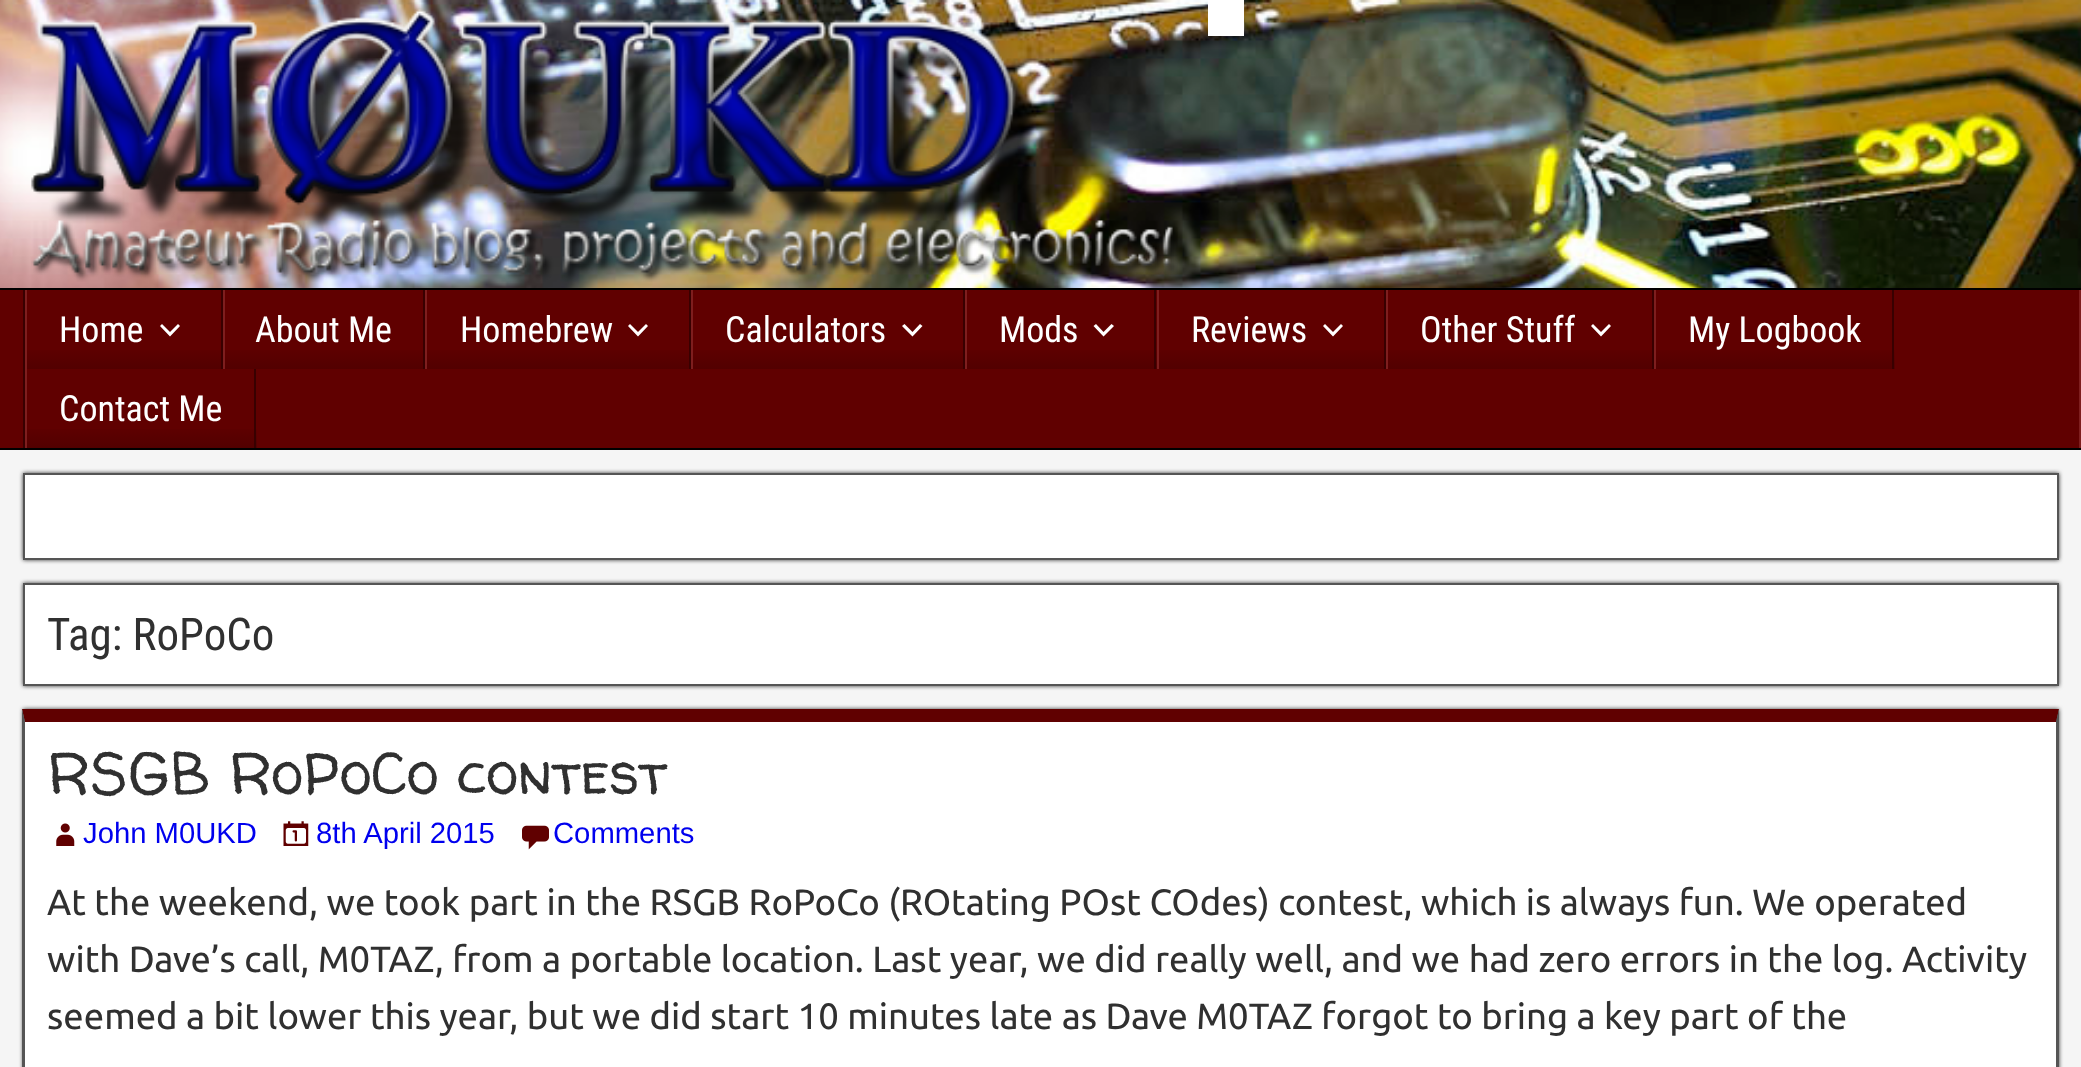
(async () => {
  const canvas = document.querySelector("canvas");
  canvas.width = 2081;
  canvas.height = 1067;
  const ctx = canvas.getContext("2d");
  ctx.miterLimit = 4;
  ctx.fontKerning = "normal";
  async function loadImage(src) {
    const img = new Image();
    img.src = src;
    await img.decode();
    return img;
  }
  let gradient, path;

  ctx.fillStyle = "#ffffff";
  ctx.fillRect(0, 0, 2081, 1067);
  ctx.drawImage(await loadImage("img/1.png"), 0, 0, 2081, 288);
  ctx.fillStyle = "#000000";
  ctx.fillRect(0, 288, 2081, 2);
  ctx.drawImage(await loadImage("img/2.png"), 31, 9, 1147, 273);
  for (const [x, y, w, h, color] of [
    [1208, 0, 36, 36, "#ffffff"],
    [0, 290, 2079, 158, "#600000"],
    [0, 448, 2081, 2, "#000000"],
    [2079, 290, 2, 158, "#7e1e1e"],
    [23, 290, 2, 158, "#380000"],
  ]) {
    ctx.fillStyle = color;
    ctx.fillRect(x, y, w, h);
  }
  gradient = ctx.createLinearGradient(124, 290, 124, 369);
  gradient.addColorStop(0.7, "#600000");
  gradient.addColorStop(1, "#520000");
  ctx.fillStyle = gradient;
  ctx.fillRect(27, 350, 194, 19);
  ctx.fillStyle = "#380000";
  ctx.fillRect(221, 290, 2, 79);
  ctx.fillStyle = "#7e1e1e";
  ctx.fillRect(25, 290, 2, 158);
  ctx.fillStyle = "#ffffff";
  path = new Path2D("M178 324L180 326L170 336.5L160 326L162 324L170 332Z");
  ctx.fill(path);
  gradient = ctx.createLinearGradient(324, 290, 324, 369);
  gradient.addColorStop(0.7, "#600000");
  gradient.addColorStop(1, "#520000");
  ctx.fillStyle = gradient;
  ctx.fillRect(225, 350, 198, 19);
  ctx.fillStyle = "#380000";
  ctx.fillRect(423, 290, 2, 79);
  ctx.fillStyle = "#7e1e1e";
  ctx.fillRect(223, 290, 2, 79);
  gradient = ctx.createLinearGradient(558, 290, 558, 369);
  gradient.addColorStop(0.7, "#600000");
  gradient.addColorStop(1, "#520000");
  ctx.fillStyle = gradient;
  ctx.fillRect(427, 350, 262, 19);
  ctx.fillStyle = "#380000";
  ctx.fillRect(689, 290, 2, 79);
  ctx.fillStyle = "#7e1e1e";
  ctx.fillRect(425, 290, 2, 79);
  ctx.fillStyle = "#ffffff";
  path = new Path2D("M646 324L648 326L638 336.5L628 326L630 324L638 332Z");
  ctx.fill(path);
  gradient = ctx.createLinearGradient(828, 290, 828, 369);
  gradient.addColorStop(0.7, "#600000");
  gradient.addColorStop(1, "#520000");
  ctx.fillStyle = gradient;
  ctx.fillRect(693, 350, 270, 19);
  ctx.fillStyle = "#380000";
  ctx.fillRect(963, 290, 2, 79);
  ctx.fillStyle = "#7e1e1e";
  ctx.fillRect(691, 290, 2, 79);
  ctx.fillStyle = "#ffffff";
  path = new Path2D("M920 324L922.5 326L912.5 336.5L902 326L904.5 324L912.5 332Z");
  ctx.fill(path);
  gradient = ctx.createLinearGradient(1061, 290, 1061, 369);
  gradient.addColorStop(0.7, "#600000");
  gradient.addColorStop(1, "#520000");
  ctx.fillStyle = gradient;
  ctx.fillRect(967, 350, 190, 19);
  ctx.fillStyle = "#380000";
  ctx.fillRect(1154, 290, 2, 79);
  ctx.fillStyle = "#7e1e1e";
  ctx.fillRect(965, 290, 2, 79);
  ctx.fillStyle = "#ffffff";
  path = new Path2D("M1111.5 324L1114 326L1103.5 336.5L1093.5 326L1096 324L1103.5 332Z");
  ctx.fill(path);
  gradient = ctx.createLinearGradient(1271, 290, 1271, 369);
  gradient.addColorStop(0.7, "#600000");
  gradient.addColorStop(1, "#520000");
  ctx.fillStyle = gradient;
  ctx.fillRect(1159, 350, 225, 19);
  ctx.fillStyle = "#380000";
  ctx.fillRect(1384, 290, 2, 79);
  ctx.fillStyle = "#7e1e1e";
  ctx.fillRect(1157, 290, 2, 79);
  ctx.fillStyle = "#ffffff";
  path = new Path2D("M1341 324L1343 326L1333 336.5L1323 326L1325 324L1333 332Z");
  ctx.fill(path);
  gradient = ctx.createLinearGradient(1520, 290, 1520, 369);
  gradient.addColorStop(0.7, "#600000");
  gradient.addColorStop(1, "#520000");
  ctx.fillStyle = gradient;
  ctx.fillRect(1388, 350, 264, 19);
  ctx.fillStyle = "#380000";
  ctx.fillRect(1652, 290, 2, 79);
  ctx.fillStyle = "#7e1e1e";
  ctx.fillRect(1386, 290, 2, 79);
  ctx.fillStyle = "#ffffff";
  path = new Path2D("M1609 324L1611 326L1601 336.5L1591 326L1593 324L1601 332Z");
  ctx.fill(path);
  gradient = ctx.createLinearGradient(1774, 290, 1774, 369);
  gradient.addColorStop(0.7, "#600000");
  gradient.addColorStop(1, "#520000");
  ctx.fillStyle = gradient;
  ctx.fillRect(1656, 350, 239, 19);
  ctx.fillStyle = "#380000";
  ctx.fillRect(1892, 290, 2, 79);
  ctx.fillStyle = "#7e1e1e";
  ctx.fillRect(1654, 290, 2, 79);
  gradient = ctx.createLinearGradient(141, 369, 141, 448);
  gradient.addColorStop(0.7, "#600000");
  gradient.addColorStop(1, "#520000");
  ctx.fillStyle = gradient;
  ctx.fillRect(27, 429, 230, 19);
  ctx.fillStyle = "#380000";
  ctx.fillRect(254, 369, 2, 79);
  ctx.fillStyle = "#f5f5f5";
  ctx.fillRect(0, 450, 2081, 617);
  ctx.fillStyle = "#333333";
  ctx.filter = "blur(2px)";
  ctx.beginPath();
  ctx.rect(23, 473, 2036, 87);
  ctx.fill();
  ctx.filter = "none";
  ctx.fillStyle = "#ffffff";
  ctx.beginPath();
  ctx.rect(24, 474, 2034, 85);
  ctx.fill();
  ctx.strokeStyle = "#555555";
  ctx.lineWidth = 2;
  ctx.stroke();
  ctx.fillStyle = "#333333";
  ctx.filter = "blur(2px)";
  ctx.beginPath();
  ctx.rect(23, 583, 2036, 103);
  ctx.fill();
  ctx.filter = "none";
  ctx.fillStyle = "#ffffff";
  ctx.beginPath();
  ctx.rect(24, 584, 2034, 101);
  ctx.fill();
  ctx.stroke();
  ctx.fillStyle = "#333333";
  ctx.filter = "blur(2px)";
  ctx.beginPath();
  ctx.rect(23, 709, 2036, 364);
  ctx.fill();
  ctx.filter = "none";
  ctx.fillStyle = "#ffffff";
  ctx.fillRect(25, 722, 2031, 345);
  ctx.fillStyle = "#600000";
  path = new Path2D("M22 709H2059L2056 722H25Z");
  ctx.fill(path);
  ctx.fillStyle = "#555555";
  path = new Path2D("M2059 709V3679L2056 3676V722Z");
  ctx.fill(path);
  path = new Path2D("M22 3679V709L25 722V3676Z");
  ctx.fill(path);
  ctx.drawImage(await loadImage("img/3.png"), 56, 823, 19, 23);
  ctx.drawImage(await loadImage("img/4.png"), 283, 821, 26, 25);
  ctx.drawImage(await loadImage("img/5.png"), 522, 825, 27, 25);
  ctx.font = "36px Roboto Condensed";
  ctx.fillStyle = "#ffffff";
  for (const [text, x, y] of [
    ["Home", 59, 342],
    ["About Me", 255, 342],
    ["Homebrew", 460, 342],
    ["Calculators", 725, 342],
    ["Mods", 999, 342],
    ["Reviews", 1191, 342],
    ["Other Stuff", 1420, 342],
    ["My Logbook", 1688, 342],
    ["Contact Me", 59, 421],
  ]) {
    ctx.fillText(text, x, y);
  }
  ctx.font = "45px Roboto Condensed";
  ctx.fillStyle = "#303030";
  ctx.fillText("Tag: RoPoCo", 47, 650);
  ctx.font = "58.5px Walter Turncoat";
  ctx.fillText("RSGB RoPoCo contest", 47, 794);
  ctx.font = "29.25px Liberation Sans";
  ctx.fillStyle = "#0000ee";
  for (const [text, x, y] of [
    ["John M0UKD", 83, 843],
    ["8th April 2015", 316, 843],
    ["Comments", 553, 843],
  ]) {
    ctx.fillText(text, x, y);
  }
  ctx.font = "36.55px Ubuntu";
  ctx.fillStyle = "#303030";
  for (const [text, x, y] of [
    ["At the weekend, we took part in the RSGB RoPoCo (ROtating POst COdes) contest, which is always fun. We operated", 47, 915],
    ["with Dave’s call, M0TAZ, from a portable location. Last year, we did really well, and we had zero errors in the log. Activity", 47, 972],
    ["seemed a bit lower this year, but we did start 10 minutes late as Dave M0TAZ forgot to bring a key part of the", 47, 1029],
  ]) {
    ctx.fillText(text, x, y);
  }
})();
